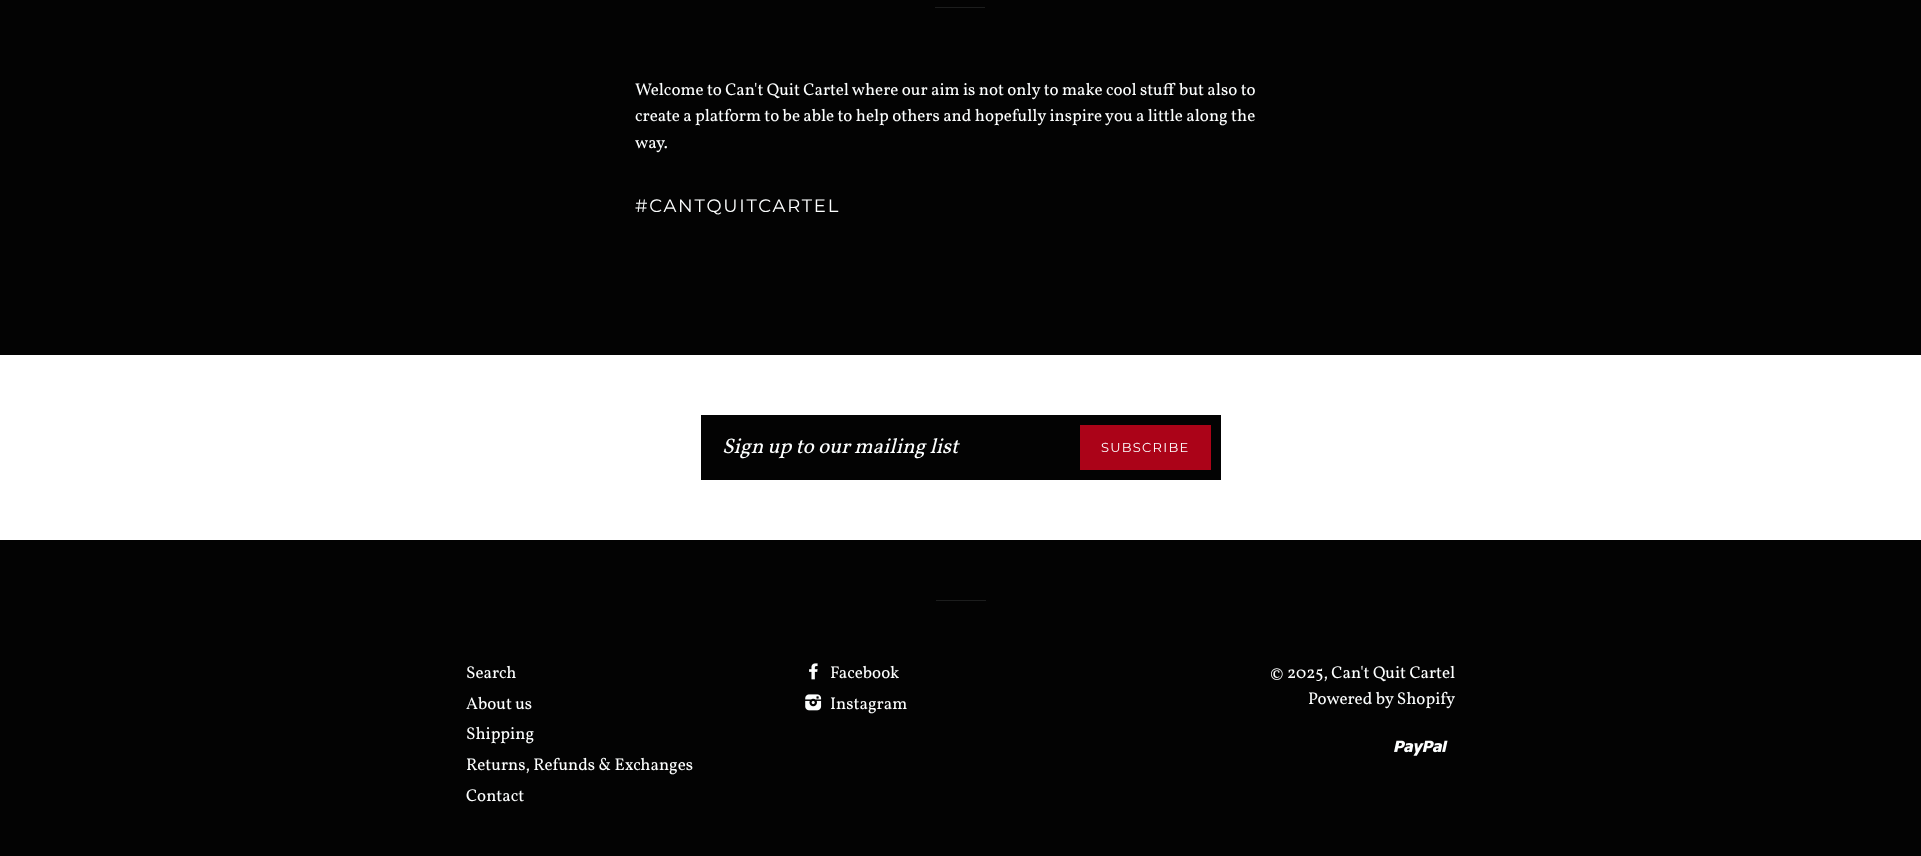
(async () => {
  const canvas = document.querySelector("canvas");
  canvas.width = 1921;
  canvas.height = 856;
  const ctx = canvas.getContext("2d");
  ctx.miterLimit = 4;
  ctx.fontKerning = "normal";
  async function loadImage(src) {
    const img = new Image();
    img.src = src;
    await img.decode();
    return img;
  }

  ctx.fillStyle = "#030303";
  ctx.fillRect(0, 0, 1921, 856);
  for (const [x, y, w, h, color] of [
    [935, 7, 50, 1, "#1c1d1d"],
    [0, 355, 1921, 185, "#ffffff"],
    [701, 415, 520, 65, "#030303"],
    [1080, 425, 131, 45, "#ab0318"],
    [936, 600, 50, 1, "#1c1d1d"],
  ]) {
    ctx.fillStyle = color;
    ctx.fillRect(x, y, w, h);
  }
  ctx.drawImage(await loadImage("img/1.png"), 809, 663, 9, 17);
  ctx.drawImage(await loadImage("img/2.png"), 805, 694, 17, 17);
  ctx.drawImage(await loadImage("img/3.png"), 1394, 740, 54, 16);
  ctx.font = "17px Vollkorn";
  ctx.fillStyle = "#fdffff";
  for (const [text, x, y] of [
    ["Welcome to Can't Quit Cartel where our aim is not only to make cool stuff but also to", 635, 95],
    ["create a platform to be able to help others and hopefully inspire you a little along the", 635, 121],
    ["way.", 635, 148],
  ]) {
    ctx.fillText(text, x, y);
  }
  ctx.letterSpacing = "1.75px";
  ctx.font = "100 18px Montserrat";
  ctx.fillText("#CANTQUITCARTEL", 635, 212);
  ctx.letterSpacing = "0px";
  ctx.font = "italic 21px Vollkorn";
  ctx.fillText("Sign up to our mailing list", 722, 453);
  ctx.letterSpacing = "1.25px";
  ctx.font = "100 13px Montserrat";
  ctx.fillText("SUBSCRIBE", 1101, 452);
  ctx.letterSpacing = "0px";
  ctx.font = "17px Vollkorn";
  for (const [text, x, y] of [
    ["Search", 466, 678],
    ["About us", 466, 709],
    ["Shipping", 466, 739],
    ["Returns, Refunds & Exchanges", 466, 770],
    ["Contact", 466, 801],
    ["Facebook", 830, 678],
    ["Instagram", 830, 709],
    ["© 2025, Can't Quit Cartel", 1270, 678],
    ["Powered by Shopify", 1308, 704],
  ]) {
    ctx.fillText(text, x, y);
  }
})();
